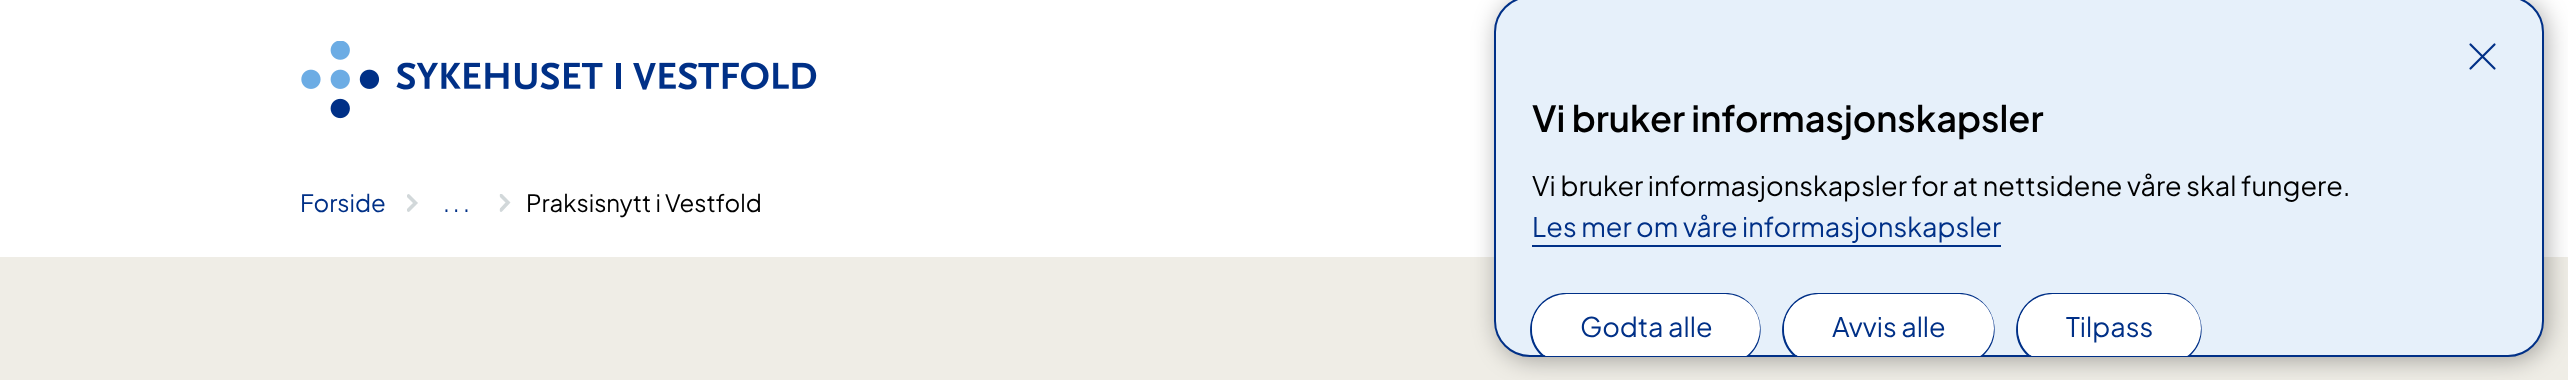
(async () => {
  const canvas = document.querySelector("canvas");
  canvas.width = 2568;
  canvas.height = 380;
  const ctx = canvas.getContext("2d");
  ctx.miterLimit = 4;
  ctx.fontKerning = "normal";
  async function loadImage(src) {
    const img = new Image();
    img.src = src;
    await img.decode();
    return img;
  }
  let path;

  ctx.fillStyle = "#ffffff";
  ctx.fillRect(0, 0, 2568, 380);
  ctx.drawImage(await loadImage("img/1.png"), 301, 41, 516, 78);
  ctx.save();
  path = new Path2D("M407 212V194H419V212Z");
  ctx.clip(path);
  path = new Path2D("M407 212V194H419V212Z");
  ctx.clip(path);
  path = new Path2D("M408.5 210L415.5 203L408.5 196");
  ctx.strokeStyle = "#d2d8da";
  ctx.lineWidth = 3.6;
  ctx.lineCap = "round";
  ctx.stroke(path);
  ctx.restore();
  ctx.save();
  path = new Path2D("M499.5 212V194H511.5V212Z");
  ctx.clip(path);
  path = new Path2D("M499.5 212V194H511.5V212Z");
  ctx.clip(path);
  path = new Path2D("M501 210L508 202.5L501 195.5");
  ctx.strokeStyle = "#d2d8da";
  ctx.lineWidth = 3.6;
  ctx.lineCap = "round";
  ctx.stroke(path);
  ctx.restore();
  ctx.fillStyle = "#efede6";
  ctx.fillRect(0, 257, 2568, 123);
  ctx.fillStyle = "rgba(0, 0, 0, 0.32)";
  ctx.filter = "blur(12px)";
  ctx.beginPath();
  ctx.roundRect(1497, -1, 1050, 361, 36);
  ctx.fill();
  ctx.filter = "none";
  ctx.fillStyle = "#e6f0fa";
  ctx.beginPath();
  ctx.roundRect(1495, -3, 1048, 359, 35);
  ctx.fill();
  ctx.strokeStyle = "#003087";
  ctx.lineWidth = 2;
  ctx.stroke();
  path = new Path2D("M2470.5 44.5L2494.5 68.5M2470.5 68.5L2494.5 44.5");
  ctx.lineWidth = 2.2;
  ctx.lineCap = "round";
  ctx.stroke(path);
  ctx.fillStyle = "#003087";
  ctx.fillRect(1532, 245, 469, 2);
  path = new Path2D("M1566 293C1533 293 1518 335 1542 356H1545C1537 350 1532 340 1532 329C1532 310 1547 295 1566 295H1725C1744 295 1759 310 1759 329C1759 340 1754 350 1746 356H1749C1773 335 1758 293 1725 293Z");
  ctx.fill(path);
  ctx.save();
  ctx.beginPath();
  ctx.roundRect(1496, -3, 1047, 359, 35);
  ctx.clip();
  ctx.fillStyle = "#ffffff";
  ctx.beginPath();
  ctx.roundRect(1532, 294, 228, 69, 34.5);
  ctx.fill();
  ctx.restore();
  path = new Path2D("M1818 293C1785 293 1770 335 1794 356H1797C1789 350 1784 340 1784 329C1784 310 1799 295 1818 295H1959C1978 295 1993 310 1993 329C1993 340 1988 350 1980 356H1983C2007 335 1992 293 1959 293Z");
  ctx.fill(path);
  ctx.save();
  ctx.beginPath();
  ctx.roundRect(1496, -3, 1047, 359, 35);
  ctx.clip();
  ctx.fillStyle = "#ffffff";
  ctx.beginPath();
  ctx.roundRect(1784, 294, 210, 69, 34.5);
  ctx.fill();
  ctx.restore();
  path = new Path2D("M2052 293C2019 293 2004 335 2028 356H2031C2023 350 2018 340 2018 329C2018 310 2033 295 2052 295H2166C2185 295 2200 310 2200 329C2200 340 2195 350 2187 356H2190C2214 335 2199 293 2166 293Z");
  ctx.fill(path);
  ctx.save();
  ctx.beginPath();
  ctx.roundRect(1496, -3, 1047, 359, 35);
  ctx.clip();
  ctx.fillStyle = "#ffffff";
  ctx.beginPath();
  ctx.roundRect(2018, 294, 183, 69, 34.5);
  ctx.fill();
  ctx.restore();
  ctx.font = "24px Plus Jakarta Sans";
  ctx.fillText("Forside", 300, 212);
  ctx.letterSpacing = "3px";
  ctx.fillText("..", 443, 212);
  ctx.letterSpacing = "0px";
  ctx.fillText(".", 463, 212);
  ctx.fillStyle = "#000000";
  ctx.fillText("Praksisnytt i Vestfold", 526, 212);
  ctx.font = "600 36px Plus Jakarta Sans";
  ctx.fillText("Vi bruker informasjonskapsler", 1532, 132);
  ctx.font = "27px Plus Jakarta Sans";
  ctx.fillText("Vi bruker informasjonskapsler for at nettsidene våre skal fungere.", 1532, 196);
  ctx.fillStyle = "#003087";
  for (const [text, x, y] of [
    ["Les mer om våre informasjonskapsler", 1532, 237],
    ["Godta alle", 1580, 337],
    ["Avvis alle", 1832, 337],
    ["Tilpass", 2066, 337],
  ]) {
    ctx.fillText(text, x, y);
  }
})();
